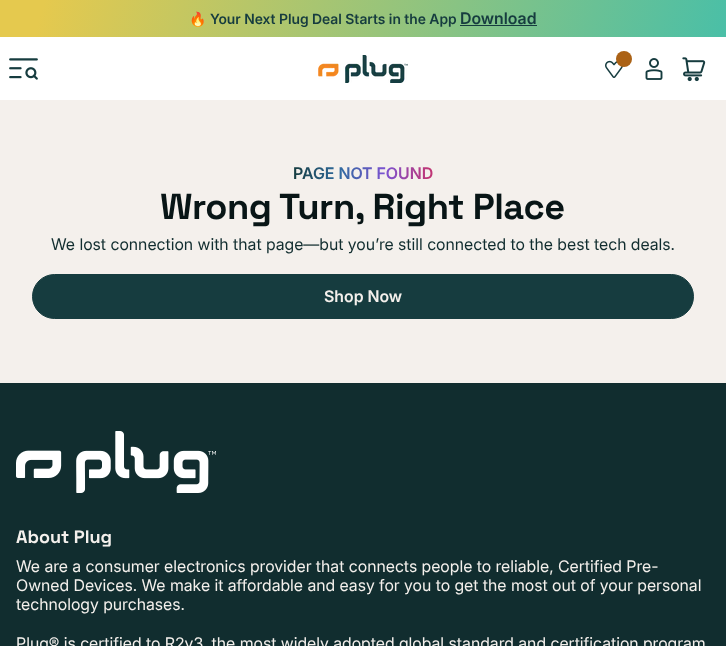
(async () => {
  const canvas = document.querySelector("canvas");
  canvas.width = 726;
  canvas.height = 646;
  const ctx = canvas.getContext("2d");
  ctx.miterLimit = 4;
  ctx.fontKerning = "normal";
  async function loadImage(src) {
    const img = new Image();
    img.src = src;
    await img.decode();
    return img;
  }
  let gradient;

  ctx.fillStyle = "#ffffff";
  ctx.fillRect(0, 0, 726, 646);
  gradient = ctx.createLinearGradient(703, 116, 23, -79);
  gradient.addColorStop(0, "#4abfa7");
  gradient.addColorStop(0.94, "#e5c94e");
  ctx.fillStyle = gradient;
  ctx.fillRect(0, 0, 726, 37);
  ctx.fillStyle = "#163c3f";
  ctx.fillRect(460, 25, 77, 1);
  ctx.drawImage(await loadImage("img/1.png"), 9, 58, 29, 22);
  ctx.drawImage(await loadImage("img/2.png"), 318, 55, 90, 28);
  ctx.drawImage(await loadImage("img/3.png"), 605, 60, 18, 18);
  ctx.fillStyle = "#ab6216";
  ctx.beginPath();
  ctx.arc(624, 59, 8, 0, Math.PI * 2);
  ctx.fill();
  ctx.drawImage(await loadImage("img/4.png"), 645, 58, 18, 22);
  ctx.drawImage(await loadImage("img/5.png"), 682, 57, 24, 25);
  ctx.fillStyle = "#f4f0ec";
  ctx.fillRect(0, 100, 726, 283);
  ctx.fillStyle = "#163c3f";
  ctx.beginPath();
  ctx.roundRect(32.5, 274.5, 661, 44, 22);
  ctx.fill();
  ctx.strokeStyle = "#163c3f";
  ctx.stroke();
  ctx.fillStyle = "#112d2f";
  ctx.fillRect(0, 383, 726, 263);
  ctx.drawImage(await loadImage("img/6.png"), 16, 431, 200, 62);
  ctx.font = "bold 14px Noto Color Emoji";
  ctx.fillStyle = "#163c3f";
  ctx.fillText("🔥", 189, 24);
  ctx.font = "600 14px Inter";
  ctx.fillText("Your Next Plug Deal Starts in the App", 210, 24);
  ctx.font = "600 16px Inter";
  ctx.fillText("Download", 460, 24);
  gradient = ctx.createLinearGradient(293, 174, 433, 174);
  gradient.addColorStop(0, "#163c3f");
  gradient.addColorStop(0.33, "#306b9f");
  gradient.addColorStop(0.66, "#7c52d1");
  gradient.addColorStop(0.97, "#bf3676");
  ctx.fillStyle = gradient;
  ctx.fillText("PAGE NOT FOUND", 293, 179);
  ctx.letterSpacing = "-0.5px";
  ctx.font = "bold 36.25px Space Grotesk";
  ctx.fillStyle = "#081516";
  ctx.fillText("Wrong Turn, Right Place", 160, 219);
  ctx.letterSpacing = "0px";
  ctx.font = "16px Inter";
  ctx.fillStyle = "#112d2f";
  ctx.fillText("We lost connection with that page—but you’re still connected to the best tech deals.", 51, 250);
  ctx.font = "600 16px Inter";
  ctx.fillStyle = "#f4f0ec";
  ctx.fillText("Shop Now", 324, 302);
  ctx.font = "bold 18px Space Grotesk";
  ctx.fillText("About Plug", 16, 543);
  ctx.font = "16px Inter";
  for (const [text, x, y] of [
    ["We are a consumer electronics provider that connects people to reliable, Certified Pre-", 16, 572],
    ["Owned Devices. We make it affordable and easy for you to get the most out of your personal", 16, 591],
    ["technology purchases.", 16, 610],
    ["Plug® is certified to R2v3, the most widely adopted global standard and certification program", 16, 649],
  ]) {
    ctx.fillText(text, x, y);
  }
})();
